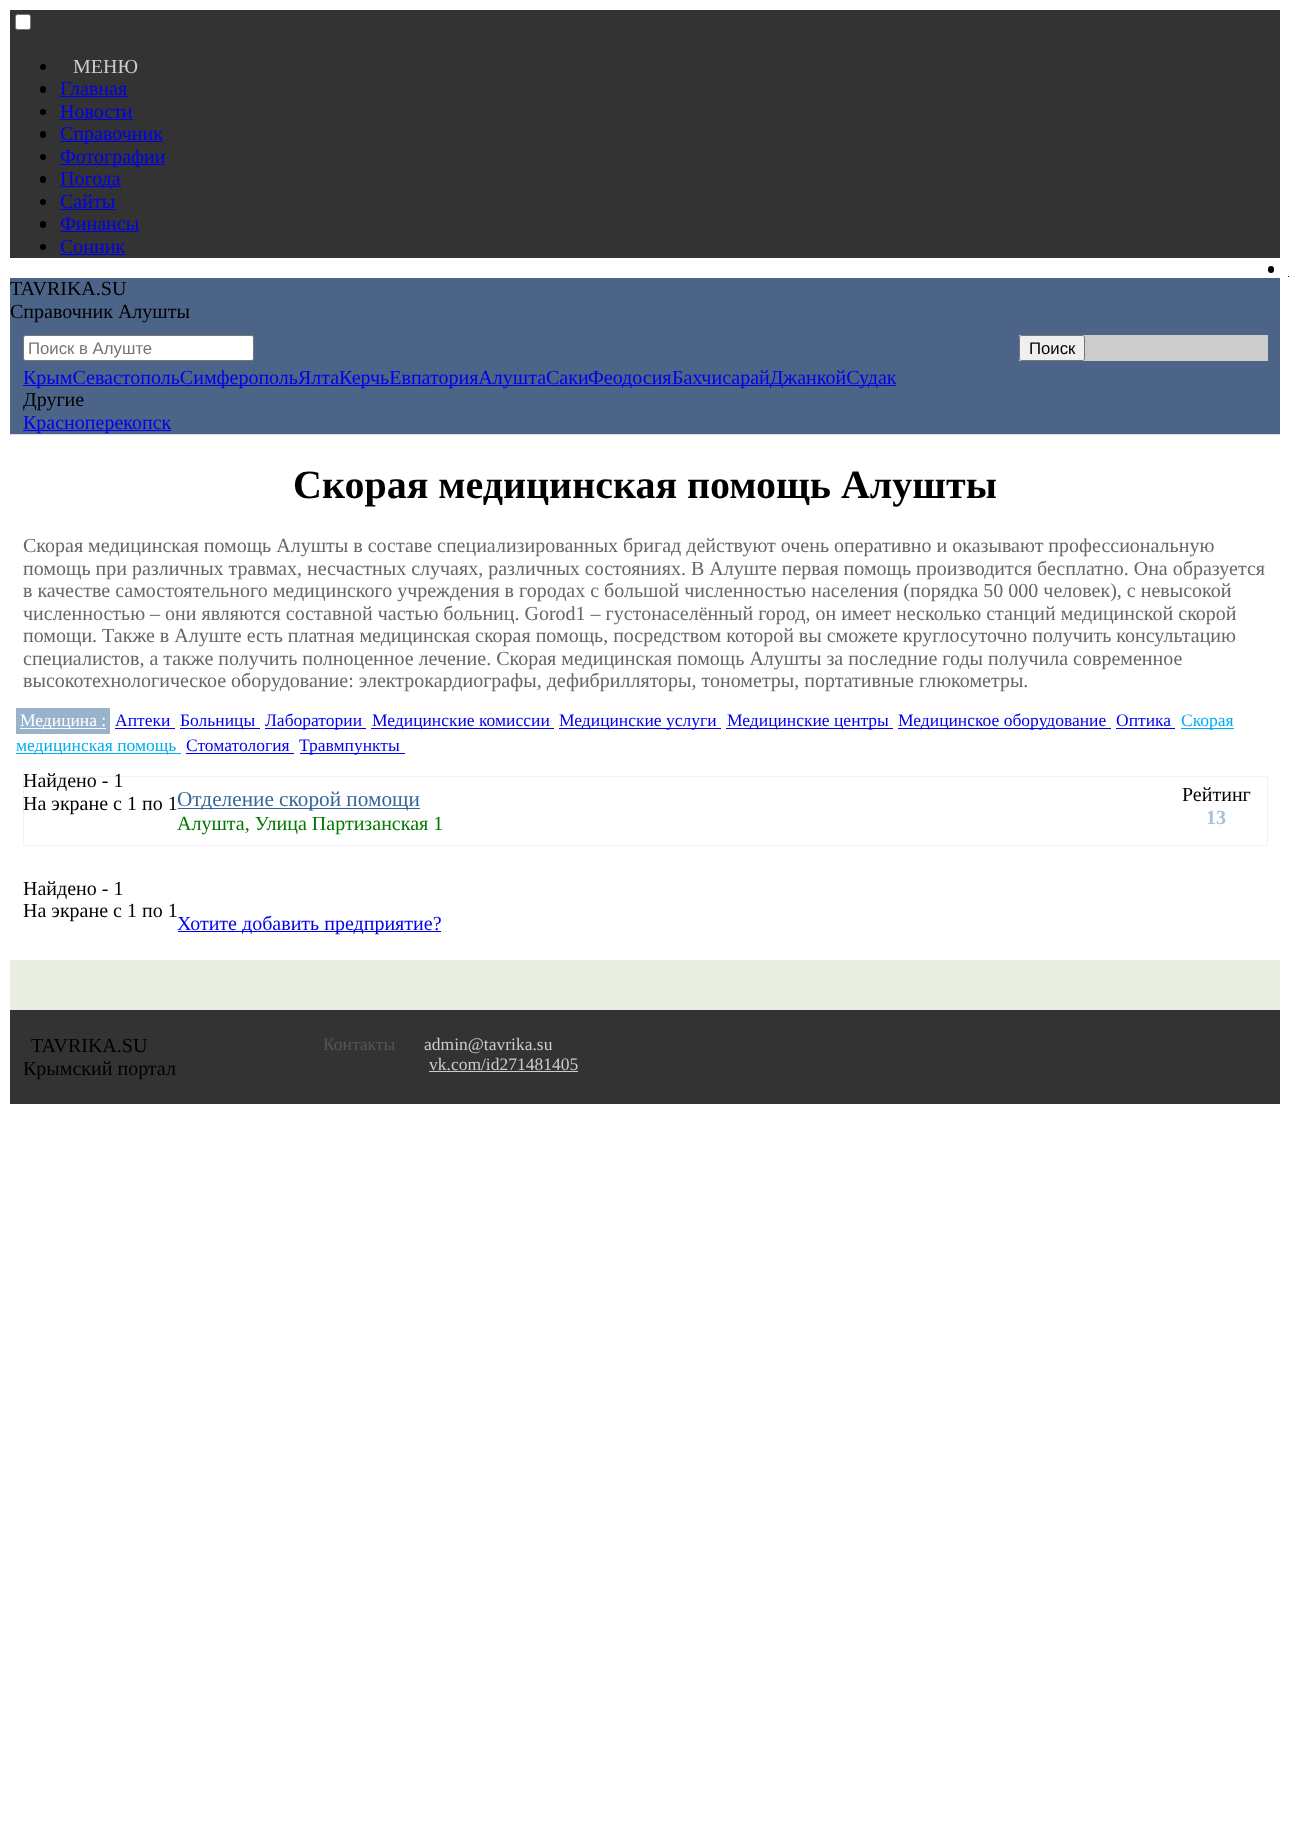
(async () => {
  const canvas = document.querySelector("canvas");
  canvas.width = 1289;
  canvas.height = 1837;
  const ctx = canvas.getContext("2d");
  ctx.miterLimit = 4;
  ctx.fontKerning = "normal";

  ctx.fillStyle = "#ffffff";
  ctx.fillRect(0, 0, 1289, 1837);
  ctx.fillStyle = "#333333";
  ctx.fillRect(10, 10, 1270, 248);
  ctx.fillStyle = "#ffffff";
  ctx.beginPath();
  ctx.roundRect(15.5, 14.5, 15, 15, 2);
  ctx.fill();
  ctx.strokeStyle = "#767676";
  ctx.stroke();
  ctx.fillStyle = "#000000";
  ctx.beginPath();
  ctx.arc(43, 67, 3, 0, Math.PI * 2);
  ctx.fill();
  ctx.beginPath();
  ctx.roundRect(40, 86, 6, 7, 3);
  ctx.fill();
  ctx.fillStyle = "#0000ee";
  ctx.fillRect(60, 96, 68, 1);
  ctx.fillStyle = "#000000";
  ctx.beginPath();
  ctx.arc(43, 112, 3, 0, Math.PI * 2);
  ctx.fill();
  ctx.fillStyle = "#0000ee";
  ctx.fillRect(60, 119, 73, 1);
  ctx.fillStyle = "#000000";
  ctx.beginPath();
  ctx.roundRect(40, 131, 6, 7, 3);
  ctx.fill();
  ctx.fillStyle = "#0000ee";
  ctx.fillRect(60, 141, 103, 1);
  ctx.fillStyle = "#000000";
  ctx.beginPath();
  ctx.arc(43, 157, 3, 0, Math.PI * 2);
  ctx.fill();
  ctx.fillStyle = "#0000ee";
  ctx.fillRect(60, 164, 105, 1);
  ctx.fillStyle = "#000000";
  ctx.beginPath();
  ctx.roundRect(40, 176, 6, 7, 3);
  ctx.fill();
  ctx.fillStyle = "#0000ee";
  ctx.fillRect(60, 186, 61, 1);
  ctx.fillStyle = "#000000";
  ctx.beginPath();
  ctx.arc(43, 202, 3, 0, Math.PI * 2);
  ctx.fill();
  ctx.fillStyle = "#0000ee";
  ctx.fillRect(60, 209, 55, 1);
  ctx.fillStyle = "#000000";
  ctx.beginPath();
  ctx.roundRect(40, 221, 6, 7, 3);
  ctx.fill();
  ctx.fillStyle = "#0000ee";
  ctx.fillRect(60, 231, 79, 1);
  ctx.fillStyle = "#000000";
  ctx.beginPath();
  ctx.arc(43, 247, 3, 0, Math.PI * 2);
  ctx.fill();
  ctx.fillStyle = "#0000ee";
  ctx.fillRect(60, 254, 65, 1);
  ctx.fillStyle = "#000000";
  ctx.beginPath();
  ctx.roundRect(1268, 266, 6, 7, 3);
  ctx.fill();
  for (const [x, y, w, h, color] of [
    [1288, 276, 1, 1, "#0000ee"],
    [10, 278, 1270, 156, "#4b6487"],
    [10, 434, 1270, 1, "#dedede"],
  ]) {
    ctx.fillStyle = color;
    ctx.fillRect(x, y, w, h);
  }
  ctx.fillStyle = "#ffffff";
  ctx.beginPath();
  ctx.roundRect(23.5, 335.5, 230, 25, 2);
  ctx.fill();
  ctx.stroke();
  ctx.fillStyle = "#cccccc";
  ctx.fillRect(1019, 335, 249, 26);
  ctx.fillStyle = "#efefef";
  ctx.beginPath();
  ctx.roundRect(1019.5, 335.5, 65, 25, 2);
  ctx.fill();
  ctx.stroke();
  for (const [x, y, w, h, color] of [
    [23, 385, 522, 1, "#0000ee"],
    [671, 385, 225, 1, "#0000ee"],
    [545, 385, 126, 1, "#0000ee"],
    [23, 430, 148, 1, "#0000ee"],
    [16, 708, 94, 26, "#99b3cd"],
    [20, 728, 86, 1, "#ffffff"],
    [115, 728, 60, 1, "#0000ee"],
    [180, 728, 80, 1, "#0000ee"],
    [265, 728, 101, 1, "#0000ee"],
    [371, 728, 183, 1, "#0000ee"],
    [559, 728, 162, 1, "#0000ee"],
    [726, 728, 167, 1, "#0000ee"],
    [898, 728, 213, 1, "#0000ee"],
    [1116, 728, 59, 1, "#0000ee"],
    [1181, 728, 53, 1, "#00aeee"],
    [16, 753, 165, 1, "#00aeee"],
    [186, 753, 108, 1, "#0000ee"],
    [300, 753, 105, 1, "#0000ee"],
  ]) {
    ctx.fillStyle = color;
    ctx.fillRect(x, y, w, h);
  }
  ctx.strokeStyle = "#f2f2f2";
  ctx.strokeRect(23.5, 776.5, 1244, 69);
  for (const [x, y, w, h, color] of [
    [178, 808, 242, 1, "#336699"],
    [178, 931, 263, 1, "#0000ee"],
    [10, 960, 1270, 50, "#e8efe2"],
    [10, 1010, 1270, 94, "#333333"],
    [429, 1071, 149, 1, "#cccccc"],
  ]) {
    ctx.fillStyle = color;
    ctx.fillRect(x, y, w, h);
  }
  ctx.font = "20px Liberation Serif";
  ctx.fillText("МЕНЮ", 73, 73);
  ctx.fillStyle = "#0000ee";
  for (const [text, x, y] of [
    ["Главная", 60, 95],
    ["Новости", 60, 118],
    ["Справочник", 60, 140],
    ["Фотографии", 60, 163],
    ["Погода", 60, 185],
    ["Сайты", 60, 208],
    ["Финансы", 60, 230],
    ["Сонник", 60, 253],
  ]) {
    ctx.fillText(text, x, y);
  }
  ctx.fillStyle = "#000000";
  ctx.fillText("TAVRIKA.SU", 10, 295);
  ctx.fillText("Справочник Алушты", 10, 318);
  ctx.font = "16.75px Liberation Sans";
  ctx.fillStyle = "#757575";
  ctx.fillText("Поиск в Алуште", 28, 354);
  ctx.fillStyle = "#000000";
  ctx.fillText("Поиск", 1029, 354);
  ctx.font = "20px Liberation Serif";
  ctx.fillStyle = "#0000ee";
  for (const [text, x, y] of [
    ["КрымСевастопольСимферопольЯлтаКерчьЕвпаторияАлуштаСаки", 23, 384],
    ["Феодосия", 588, 384],
    ["БахчисарайДжанкойСудак", 672, 384],
  ]) {
    ctx.fillText(text, x, y);
  }
  ctx.fillStyle = "#000000";
  ctx.fillText("Другие", 23, 406);
  ctx.fillStyle = "#0000ee";
  ctx.fillText("Красноперекопск", 23, 429);
  ctx.font = "bold 40px Liberation Serif";
  ctx.fillStyle = "#000000";
  ctx.fillText("Скорая медицинская помощь Алушты", 293, 498);
  ctx.font = "20px Liberation Serif";
  ctx.fillStyle = "#666666";
  for (const [text, x, y] of [
    ["Скорая медицинская помощь Алушты в составе специализированных бригад действуют очень оперативно и оказывают профессиональную", 23, 552],
    ["помощь при различных травмах, несчастных случаях, различных состояниях. В Алуште первая помощь производится бесплатно. Она образуется", 23, 575],
    ["в качестве самостоятельного медицинского учреждения в городах с большой численностью населения (порядка 50 000 человек), с невысокой", 23, 597],
    ["численностью – они являются составной частью больниц. Gorod1 – густонаселённый город, он имеет несколько станций медицинской скорой", 23, 620],
    ["помощи. Также в Алуште есть платная медицинская скорая помощь, посредством которой вы сможете круглосуточно получить консультацию", 23, 642],
    ["специалистов, а также получить полноценное лечение. Скорая медицинская помощь Алушты за последние годы получила современное", 23, 665],
    ["высокотехнологическое оборудование: электрокардиографы, дефибрилляторы, тонометры, портативные глюкометры.", 23, 687],
  ]) {
    ctx.fillText(text, x, y);
  }
  ctx.font = "17.5px Liberation Serif";
  ctx.fillStyle = "#ffffff";
  ctx.fillText("Медицина :", 20, 726);
  ctx.fillStyle = "#0000ee";
  for (const [text, x, y] of [
    ["Аптеки", 115, 726],
    ["Больницы", 180, 726],
    ["Лаборатории", 265, 726],
    ["Медицинские комиссии", 372, 726],
    ["Медицинские услуги", 559, 726],
    ["Медицинские центры", 727, 726],
    ["Медицинское оборудование", 898, 726],
    ["Оптика", 1116, 726],
  ]) {
    ctx.fillText(text, x, y);
  }
  ctx.fillStyle = "#00aeee";
  ctx.fillText("Скорая", 1181, 726);
  ctx.fillText("медицинская помощь", 16, 751);
  ctx.fillStyle = "#0000ee";
  ctx.fillText("Стоматология", 186, 751);
  ctx.fillText("Травмпункты", 299, 751);
  ctx.font = "20px Liberation Serif";
  ctx.fillStyle = "#000000";
  ctx.fillText("Найдено - 1", 23, 787);
  ctx.fillText("На экране с 1 по 1", 23, 810);
  ctx.font = "21.25px Liberation Serif";
  ctx.fillStyle = "#336699";
  ctx.fillText("Отделение скорой помощи", 177, 806);
  ctx.font = "20px Liberation Serif";
  ctx.fillStyle = "#007700";
  ctx.fillText("Алушта, Улица Партизанская 1", 177, 830);
  ctx.fillStyle = "#000000";
  ctx.fillText("Рейтинг", 1182, 801);
  ctx.font = "bold 20px Liberation Serif";
  ctx.fillStyle = "#a8c1d9";
  ctx.fillText("13", 1206, 824);
  ctx.font = "20px Liberation Serif";
  ctx.fillStyle = "#000000";
  ctx.fillText("Найдено - 1", 23, 895);
  ctx.fillText("На экране с 1 по 1", 23, 917);
  ctx.fillStyle = "#0000ee";
  ctx.fillText("Хотите добавить предприятие?", 177, 930);
  ctx.fillStyle = "#000000";
  ctx.fillText("TAVRIKA.SU", 31, 1052);
  ctx.fillText("Крымский портал", 23, 1075);
  ctx.font = "17.5px Liberation Serif";
  ctx.fillStyle = "#555555";
  ctx.fillText("Контакты", 323, 1050);
  ctx.fillStyle = "#cccccc";
  ctx.fillText("admin@tavrika.su", 424, 1050);
  ctx.fillText("vk.com/id271481405", 429, 1070);
})();
